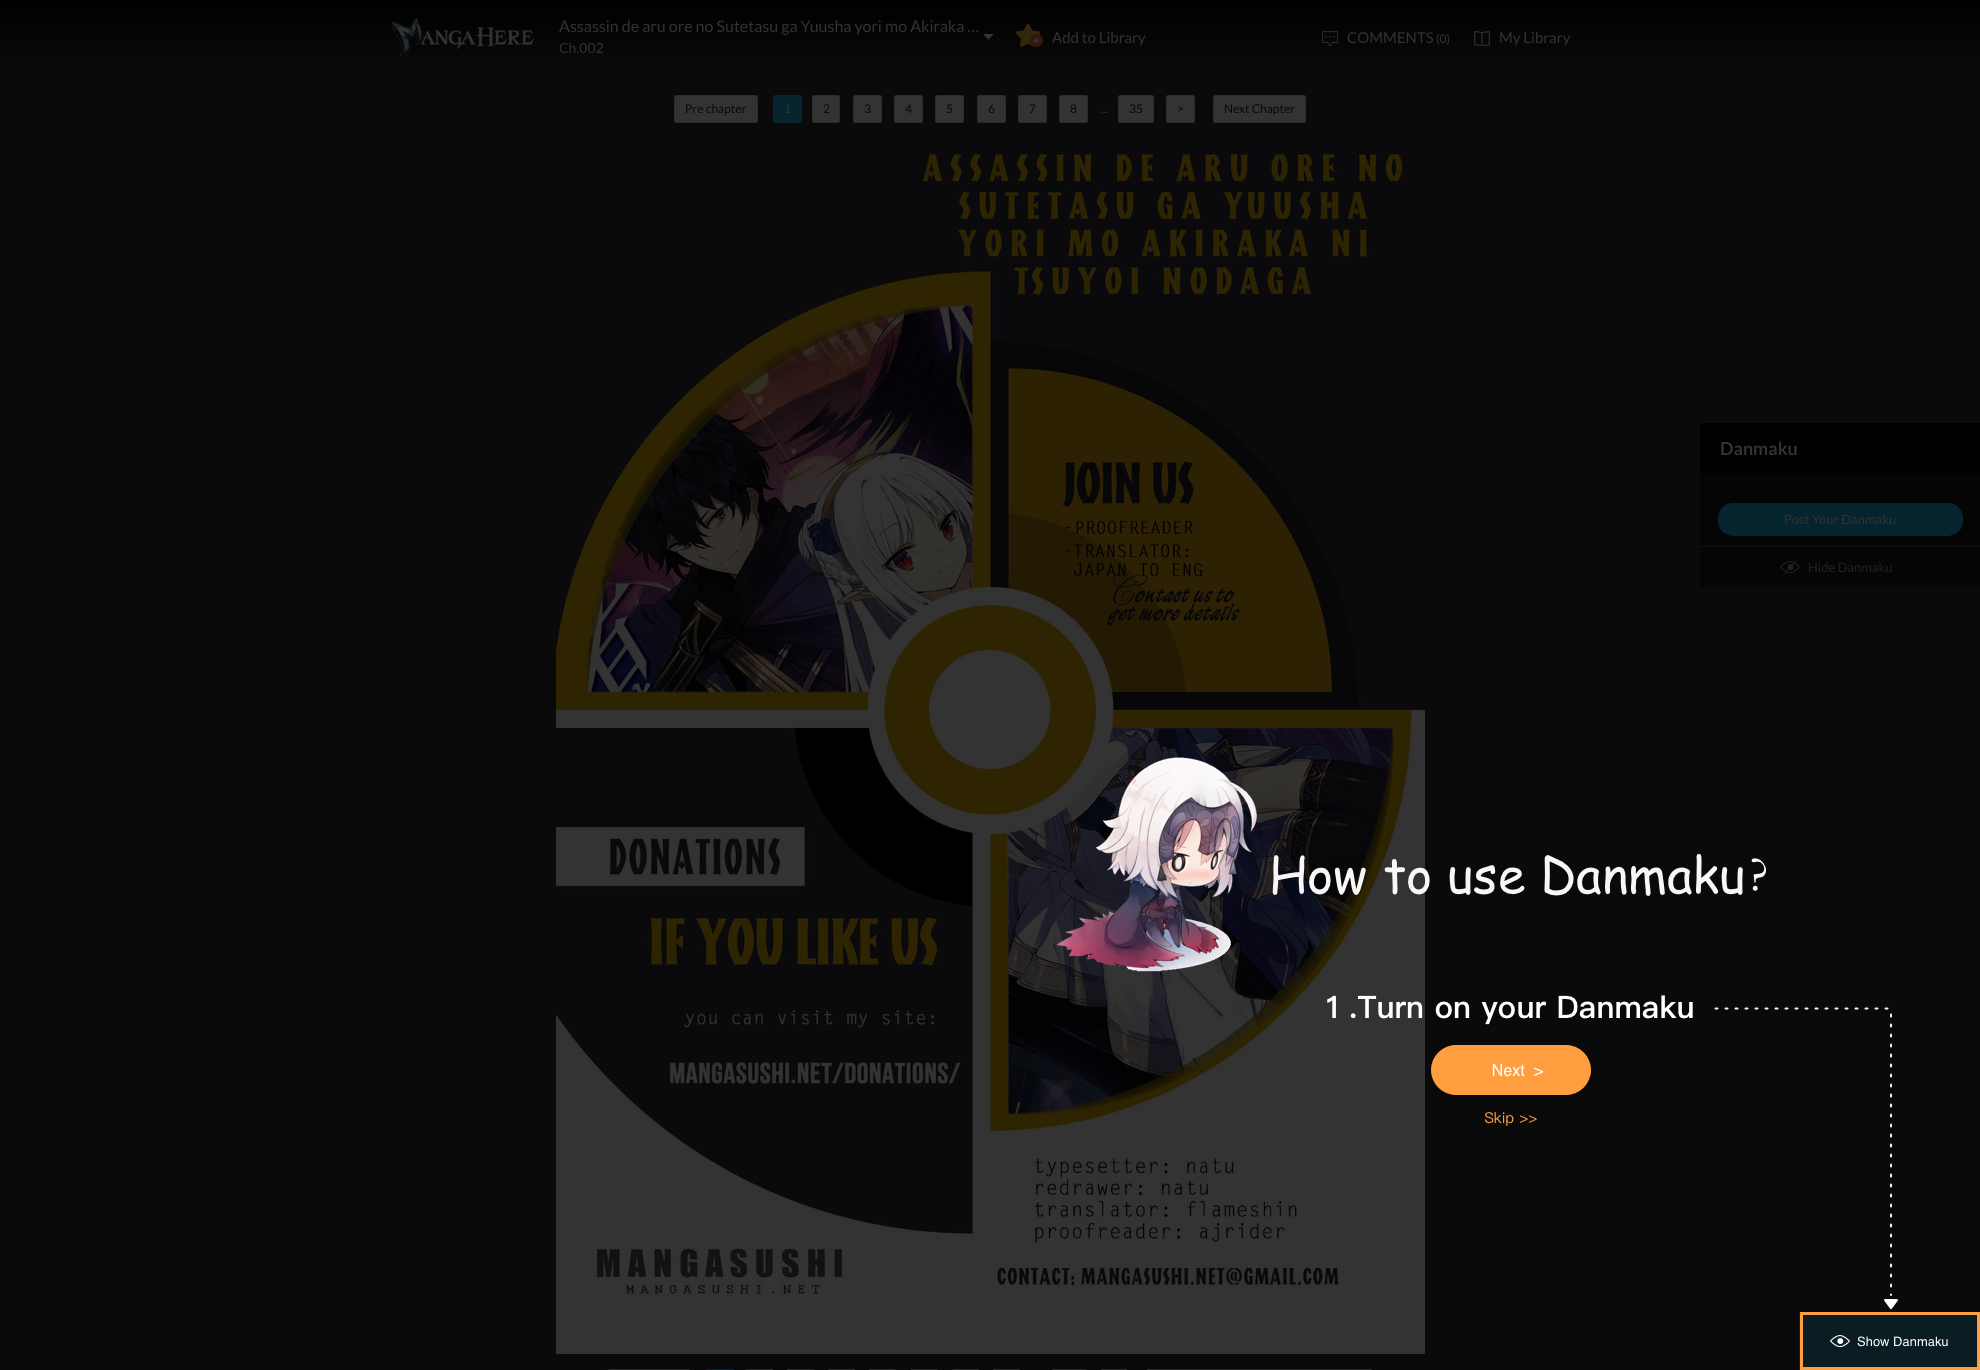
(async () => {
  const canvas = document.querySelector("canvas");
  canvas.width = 1980;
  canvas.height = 1370;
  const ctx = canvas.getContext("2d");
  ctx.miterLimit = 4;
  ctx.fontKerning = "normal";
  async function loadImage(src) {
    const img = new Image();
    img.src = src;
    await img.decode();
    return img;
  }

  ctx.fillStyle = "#0a0a0a";
  ctx.fillRect(0, 0, 1980, 1370);
  ctx.drawImage(await loadImage("img/1.png"), 0, 0, 1980, 68);
  ctx.drawImage(await loadImage("img/2.png"), 390, 17, 144, 40);
  ctx.drawImage(await loadImage("img/3.png"), 983, 34, 11, 6);
  ctx.drawImage(await loadImage("img/4.png"), 1016, 24, 27, 24);
  ctx.drawImage(await loadImage("img/5.png"), 1322, 31, 16, 15);
  ctx.drawImage(await loadImage("img/6.png"), 1474, 31, 16, 15);
  ctx.fillStyle = "#333333";
  ctx.beginPath();
  ctx.roundRect(674.5, 95.5, 83, 27, 1.5);
  ctx.fill();
  ctx.strokeStyle = "#2b2b2b";
  ctx.stroke();
  ctx.fillStyle = "#05242e";
  ctx.beginPath();
  ctx.roundRect(773, 95, 29, 28, 2);
  ctx.fill();
  ctx.fillStyle = "#333333";
  ctx.beginPath();
  ctx.roundRect(812.5, 95.5, 27, 27, 1.5);
  ctx.fill();
  ctx.stroke();
  ctx.beginPath();
  ctx.roundRect(853.5, 95.5, 28, 27, 1.5);
  ctx.fill();
  ctx.stroke();
  ctx.beginPath();
  ctx.roundRect(894.5, 95.5, 28, 27, 1.5);
  ctx.fill();
  ctx.stroke();
  ctx.beginPath();
  ctx.roundRect(935.5, 95.5, 28, 27, 1.5);
  ctx.fill();
  ctx.stroke();
  ctx.beginPath();
  ctx.roundRect(977.5, 95.5, 28, 27, 1.5);
  ctx.fill();
  ctx.stroke();
  ctx.beginPath();
  ctx.roundRect(1018.5, 95.5, 28, 27, 1.5);
  ctx.fill();
  ctx.stroke();
  ctx.beginPath();
  ctx.roundRect(1059.5, 95.5, 28, 27, 1.5);
  ctx.fill();
  ctx.stroke();
  ctx.beginPath();
  ctx.roundRect(1118.5, 95.5, 35, 27, 1.5);
  ctx.fill();
  ctx.stroke();
  ctx.beginPath();
  ctx.roundRect(1166.5, 95.5, 28, 27, 1.5);
  ctx.fill();
  ctx.stroke();
  ctx.beginPath();
  ctx.roundRect(1213.5, 95.5, 92, 27, 1.5);
  ctx.fill();
  ctx.stroke();
  ctx.drawImage(await loadImage("img/7.png"), 556, 138, 869, 1216);
  ctx.fillStyle = "#050505";
  ctx.beginPath();
  ctx.roundRect(1700, 423, 280, 164, [6, 0, 0, 0]);
  ctx.fill();
  ctx.fillStyle = "#000000";
  ctx.beginPath();
  ctx.roundRect(1700, 423, 280, 50, [6, 0, 0, 0]);
  ctx.fill();
  ctx.fillStyle = "#05242e";
  ctx.beginPath();
  ctx.roundRect(1718, 503, 245, 33, 15);
  ctx.fill();
  ctx.drawImage(await loadImage("img/8.png"), 1780, 560, 20, 15);
  ctx.fillStyle = "#111111";
  ctx.fillRect(1700, 546, 280, 1);
  ctx.beginPath();
  ctx.roundRect(1051.5, 1369.5, 35, 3, 1.5);
  ctx.stroke();
  ctx.beginPath();
  ctx.roundRect(1100.5, 1369.5, 27, 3, 1.5);
  ctx.stroke();
  ctx.beginPath();
  ctx.roundRect(1146.5, 1369.5, 226, 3, 1.5);
  ctx.stroke();
  ctx.drawImage(await loadImage("img/9.png"), 1055, 757, 925, 613);
  ctx.beginPath();
  ctx.roundRect(607.5, 1369.5, 83, 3, 1.5);
  ctx.stroke();
  ctx.fillStyle = "#05242e";
  ctx.beginPath();
  ctx.roundRect(706, 1369, 29, 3, 2);
  ctx.fill();
  ctx.beginPath();
  ctx.roundRect(745.5, 1369.5, 28, 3, 1.5);
  ctx.stroke();
  ctx.beginPath();
  ctx.roundRect(786.5, 1369.5, 28, 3, 1.5);
  ctx.stroke();
  ctx.beginPath();
  ctx.roundRect(827.5, 1369.5, 28, 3, 1.5);
  ctx.stroke();
  ctx.beginPath();
  ctx.roundRect(868.5, 1369.5, 28, 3, 1.5);
  ctx.stroke();
  ctx.beginPath();
  ctx.roundRect(910.5, 1369.5, 28, 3, 1.5);
  ctx.stroke();
  ctx.beginPath();
  ctx.roundRect(951.5, 1369.5, 28, 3, 1.5);
  ctx.stroke();
  ctx.beginPath();
  ctx.roundRect(992.5, 1369.5, 28, 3, 1.5);
  ctx.stroke();
  ctx.font = "16px Lato";
  ctx.fillStyle = "#333333";
  ctx.fillText("Assassin de aru ore no Sutetasu ga Yuusha yori mo Akiraka …", 559, 32);
  ctx.font = "14px Lato";
  ctx.fillText("Ch.002", 559, 53);
  ctx.font = "15px Lato";
  ctx.fillText("Add to Library", 1052, 43);
  ctx.fillText("COMMENTS", 1347, 43);
  ctx.font = "12px Lato";
  ctx.fillText("(0)", 1436, 43);
  ctx.font = "15px Lato";
  ctx.fillText("My Library", 1499, 43);
  ctx.font = "12px Lato";
  ctx.fillStyle = "#090909";
  ctx.fillText("Pre chapter", 685, 113);
  ctx.fillStyle = "#333333";
  ctx.fillText("1", 784, 113);
  ctx.fillStyle = "#090909";
  for (const [text, x, y] of [
    ["2", 823, 113],
    ["3", 864, 113],
    ["4", 905, 113],
    ["5", 946, 113],
    ["6", 988, 113],
    ["7", 1029, 113],
    ["8", 1070, 113],
    ["35", 1129, 113],
    [">", 1177, 113],
  ]) {
    ctx.fillText(text, x, y);
  }
  ctx.fillStyle = "#333333";
  ctx.fillText("...", 1101, 113);
  ctx.fillStyle = "#090909";
  ctx.fillText("Next Chapter", 1224, 113);
  ctx.font = "bold 18px Lato";
  ctx.fillStyle = "#333333";
  ctx.fillText("Danmaku", 1720, 455);
  ctx.font = "13px Lato";
  ctx.fillText("Post Your Danmaku", 1784, 524);
  ctx.fillStyle = "#212121";
  ctx.fillText("Hide Danmaku", 1808, 572);
})();
